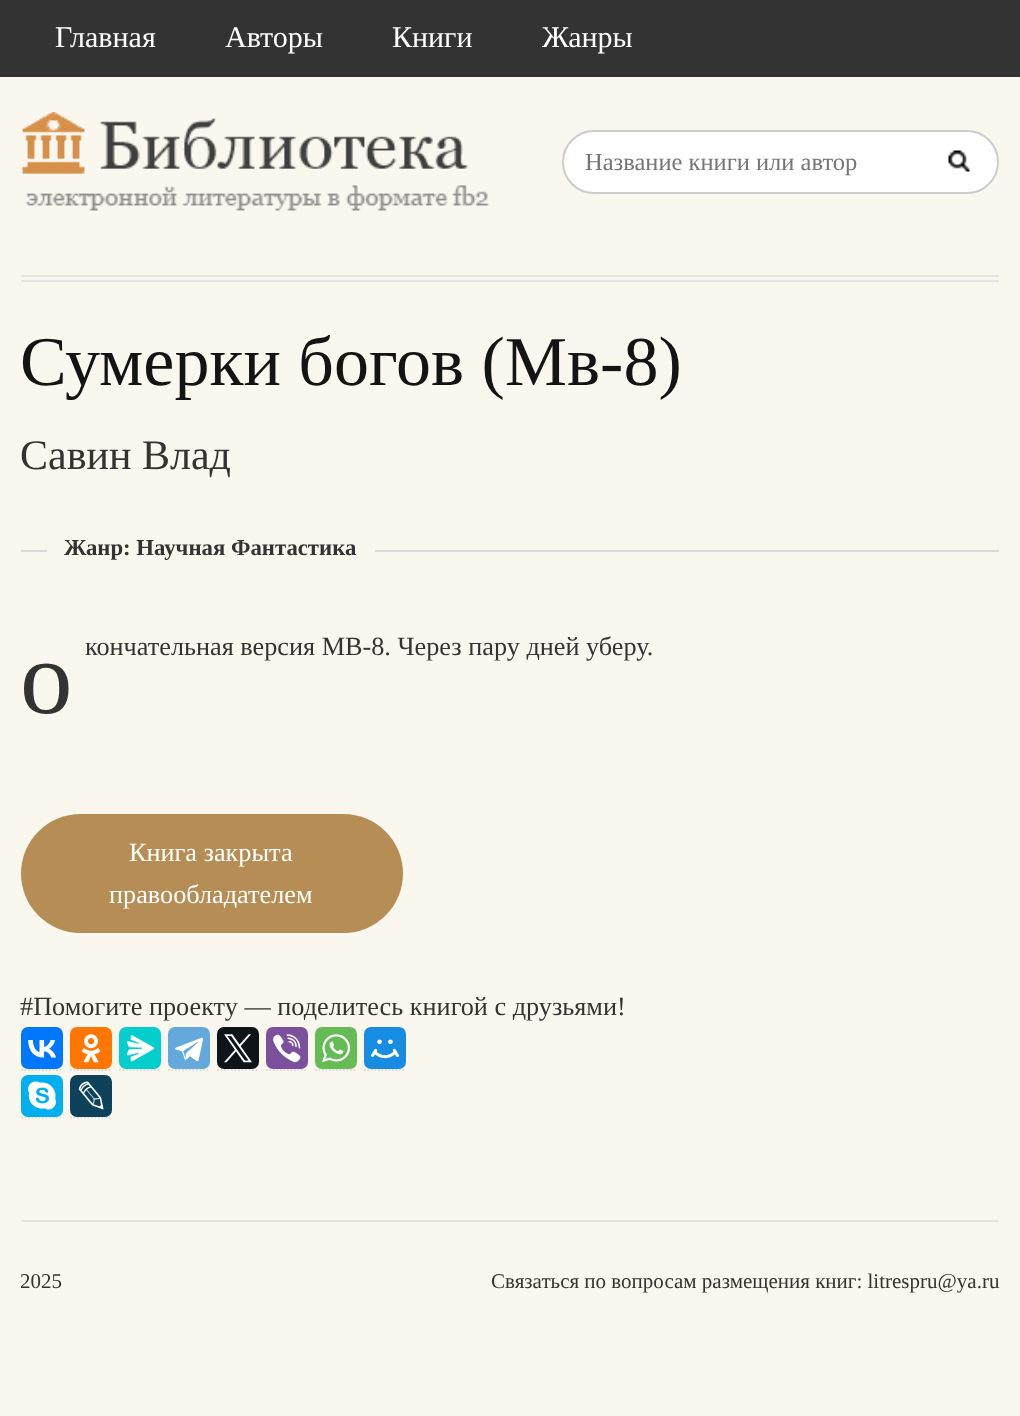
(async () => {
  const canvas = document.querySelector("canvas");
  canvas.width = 1020;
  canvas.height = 1416;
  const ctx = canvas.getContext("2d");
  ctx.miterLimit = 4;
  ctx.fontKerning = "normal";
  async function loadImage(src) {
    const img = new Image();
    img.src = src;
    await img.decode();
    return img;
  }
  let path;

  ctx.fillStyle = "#faf7ee";
  ctx.fillRect(0, 0, 1020, 1416);
  for (const [x, y, w, h, color] of [
    [0, 0, 1020, 77, "#333333"],
    [21, 275, 978, 2, "#e5e5e5"],
    [21, 280, 978, 2, "#e5e5e5"],
  ]) {
    ctx.fillStyle = color;
    ctx.fillRect(x, y, w, h);
  }
  ctx.drawImage(await loadImage("img/1.png"), 22, 112, 468, 99);
  ctx.fillStyle = "#ffffff";
  ctx.beginPath();
  ctx.roundRect(562, 130, 437, 64, 32);
  ctx.fill();
  ctx.drawImage(await loadImage("img/2.png"), 948, 150, 22, 22);
  ctx.beginPath();
  ctx.roundRect(563, 131, 435, 62, 31);
  ctx.strokeStyle = "#cccccc";
  ctx.lineWidth = 2;
  ctx.stroke();
  for (const [x, y, w, h, color] of [
    [21, 1220, 978, 2, "#e5e5e5"],
    [21, 550, 978, 2, "#d9d9d9"],
    [47, 550, 328, 2, "#faf7ee"],
  ]) {
    ctx.fillStyle = color;
    ctx.fillRect(x, y, w, h);
  }
  ctx.fillStyle = "#b68e55";
  ctx.beginPath();
  ctx.roundRect(21, 814, 382, 119, 59.5);
  ctx.fill();
  path = new Path2D("M21 1070H63");
  ctx.strokeStyle = "#dddddd";
  ctx.lineWidth = 1.8;
  ctx.setLineDash([1.75, 1.75]);
  ctx.stroke(path);
  ctx.fillStyle = "#0077ff";
  ctx.beginPath();
  ctx.roundRect(21, 1027, 42, 42, 7);
  ctx.fill();
  ctx.drawImage(await loadImage("img/3.png"), 28, 1040, 29, 18);
  path = new Path2D("M70 1070H112");
  ctx.stroke(path);
  ctx.fillStyle = "#ff7700";
  ctx.beginPath();
  ctx.roundRect(70, 1027, 42, 42, 7);
  ctx.fill();
  ctx.drawImage(await loadImage("img/4.png"), 81, 1034, 20, 29);
  path = new Path2D("M119 1070H161");
  ctx.stroke(path);
  ctx.fillStyle = "#03cece";
  ctx.beginPath();
  ctx.roundRect(119, 1027, 42, 42, 7);
  ctx.fill();
  ctx.drawImage(await loadImage("img/5.png"), 126, 1035, 28, 27);
  path = new Path2D("M168 1070H210");
  ctx.stroke(path);
  ctx.fillStyle = "#64a9dc";
  ctx.beginPath();
  ctx.roundRect(168, 1027, 42, 42, 7);
  ctx.fill();
  ctx.drawImage(await loadImage("img/6.png"), 175, 1037, 28, 25);
  path = new Path2D("M217 1070H259");
  ctx.stroke(path);
  ctx.fillStyle = "#0f1419";
  ctx.beginPath();
  ctx.roundRect(217, 1027, 42, 42, 7);
  ctx.fill();
  ctx.drawImage(await loadImage("img/7.png"), 224, 1034, 28, 29);
  path = new Path2D("M266 1070H308");
  ctx.stroke(path);
  ctx.fillStyle = "#7b519d";
  ctx.beginPath();
  ctx.roundRect(266, 1027, 42, 42, 7);
  ctx.fill();
  ctx.drawImage(await loadImage("img/8.png"), 273, 1034, 28, 29);
  path = new Path2D("M315 1070H357");
  ctx.stroke(path);
  ctx.fillStyle = "#65bc54";
  ctx.beginPath();
  ctx.roundRect(315, 1027, 42, 42, 7);
  ctx.fill();
  ctx.drawImage(await loadImage("img/9.png"), 322, 1034, 28, 29);
  path = new Path2D("M364 1070H406");
  ctx.stroke(path);
  ctx.fillStyle = "#168de2";
  ctx.beginPath();
  ctx.roundRect(364, 1027, 42, 42, 7);
  ctx.fill();
  ctx.drawImage(await loadImage("img/10.png"), 371, 1039, 28, 20);
  path = new Path2D("M21 1117.5H63");
  ctx.stroke(path);
  ctx.fillStyle = "#00aff0";
  ctx.beginPath();
  ctx.roundRect(21, 1075, 42, 42, 7);
  ctx.fill();
  ctx.drawImage(await loadImage("img/11.png"), 28, 1081, 28, 29);
  path = new Path2D("M70 1117.5H112");
  ctx.stroke(path);
  ctx.fillStyle = "#0d425a";
  ctx.beginPath();
  ctx.roundRect(70, 1075, 42, 42, 7);
  ctx.fill();
  ctx.drawImage(await loadImage("img/12.png"), 78, 1081, 26, 29);
  ctx.font = "30px Liberation Serif";
  ctx.fillStyle = "#ffffff";
  for (const [text, x, y] of [
    ["Главная", 55, 47],
    ["Авторы", 225, 47],
    ["Книги", 392, 47],
    ["Жанры", 542, 47],
  ]) {
    ctx.fillText(text, x, y);
  }
  ctx.font = "24.5px Liberation Serif";
  ctx.fillStyle = "#757575";
  ctx.fillText("Название книги или автор", 585, 170);
  ctx.font = "70px Liberation Serif";
  ctx.fillStyle = "#141414";
  ctx.fillText("Сумерки богов (Мв-8)", 20, 385);
  ctx.font = "42px Liberation Serif";
  ctx.fillStyle = "#333333";
  ctx.fillText("Савин Влад", 20, 469);
  ctx.font = "bold 22.75px Liberation Serif";
  ctx.fillText("Жанр: Научная Фантастика", 64, 555);
  ctx.font = "26.25px Liberation Serif";
  ctx.fillText("кончательная версия МВ-8. Через пару дней уберу.", 85, 655);
  ctx.font = "105px Liberation Serif";
  ctx.fillText("о", 20, 713);
  ctx.font = "26.25px Liberation Serif";
  ctx.fillStyle = "#ffffff";
  ctx.fillText("Книга закрыта", 129, 861);
  ctx.fillText("правообладателем", 109, 903);
  ctx.fillStyle = "#333333";
  ctx.fillText("#Помогите проекту — поделитесь книгой с друзьями!", 20, 1015);
  ctx.font = "21px Liberation Serif";
  ctx.fillText("2025", 20, 1288);
  ctx.fillText("Связаться по вопросам размещения книг: litrespru@ya.ru", 491, 1288);
})();
